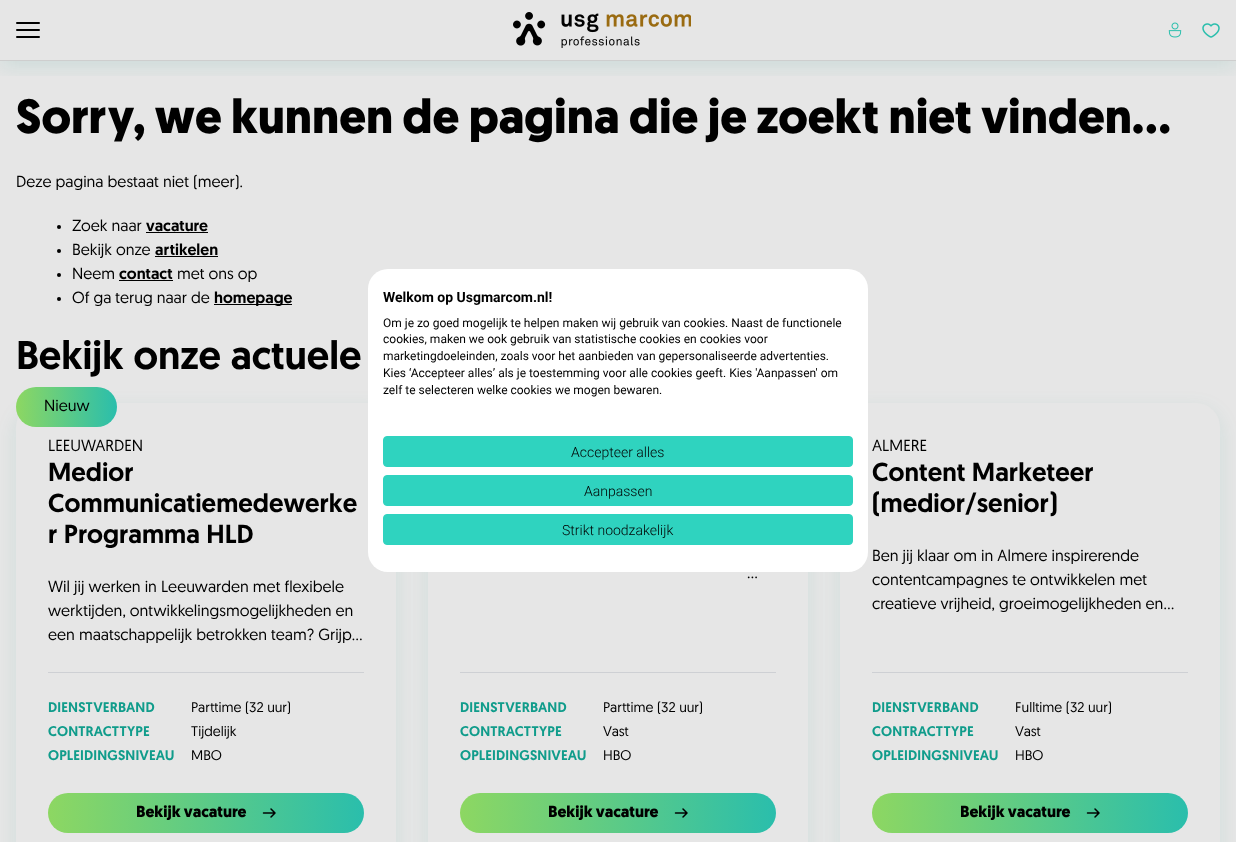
(async () => {
  const canvas = document.querySelector("canvas");
  canvas.width = 1236;
  canvas.height = 842;
  const ctx = canvas.getContext("2d");
  ctx.miterLimit = 4;
  ctx.fontKerning = "normal";
  async function loadImage(src) {
    const img = new Image();
    img.src = src;
    await img.decode();
    return img;
  }
  let gradient;

  ctx.fillStyle = "#e6e6e6";
  ctx.fillRect(0, 0, 1236, 842);
  ctx.save();
  ctx.beginPath();
  ctx.rect(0, 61, 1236, 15);
  ctx.clip();
  ctx.fillStyle = "rgba(0, 141, 122, 0.1)";
  ctx.filter = "blur(10px)";
  ctx.beginPath();
  ctx.rect(0, 7, 1236, 61);
  ctx.fill();
  ctx.filter = "none";
  ctx.restore();
  ctx.fillStyle = "#cecece";
  ctx.fillRect(0, 60, 1236, 1);
  ctx.fillStyle = "#000000";
  ctx.beginPath();
  ctx.roundRect(16, 22, 24, 2, 1);
  ctx.fill();
  ctx.beginPath();
  ctx.roundRect(16, 29, 24, 2, 1);
  ctx.fill();
  ctx.beginPath();
  ctx.roundRect(16, 36, 24, 2, 1);
  ctx.fill();
  ctx.drawImage(await loadImage("img/1.png"), 513, 12, 178, 36);
  ctx.drawImage(await loadImage("img/2.png"), 1168, 22, 14, 16);
  ctx.drawImage(await loadImage("img/3.png"), 1202, 23, 18, 15);
  ctx.beginPath();
  ctx.arc(59, 227, 2, 0, Math.PI * 2);
  ctx.fill();
  ctx.fillRect(146, 232, 62, 1);
  ctx.beginPath();
  ctx.arc(59, 251, 2, 0, Math.PI * 2);
  ctx.fill();
  ctx.fillRect(155, 256, 63, 1);
  ctx.beginPath();
  ctx.arc(59, 275, 2, 0, Math.PI * 2);
  ctx.fill();
  ctx.fillRect(119, 280, 54, 1);
  ctx.beginPath();
  ctx.arc(59, 299, 2, 0, Math.PI * 2);
  ctx.fill();
  ctx.fillRect(214, 304, 78, 1);
  ctx.fillStyle = "rgba(0, 141, 122, 0.1)";
  ctx.filter = "blur(10px)";
  ctx.beginPath();
  ctx.roundRect(16, 410, 380, 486, 24);
  ctx.fill();
  ctx.filter = "none";
  ctx.fillStyle = "#e6e6e6";
  ctx.beginPath();
  ctx.roundRect(16, 403, 380, 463, 24);
  ctx.fill();
  gradient = ctx.createLinearGradient(16, 407, 117, 407);
  gradient.addColorStop(0, "#8dd762");
  gradient.addColorStop(1, "#2abeac");
  ctx.fillStyle = gradient;
  ctx.beginPath();
  ctx.roundRect(16, 387, 101, 40, 20);
  ctx.fill();
  ctx.fillStyle = "#ced0d4";
  ctx.fillRect(48, 672, 316, 1);
  gradient = ctx.createLinearGradient(48, 813, 364, 813);
  gradient.addColorStop(0, "#8dd762");
  gradient.addColorStop(1, "#2abeac");
  ctx.fillStyle = gradient;
  ctx.beginPath();
  ctx.roundRect(48, 793, 316, 40, 20);
  ctx.fill();
  ctx.drawImage(await loadImage("img/4.png"), 262, 808, 14, 10);
  ctx.fillStyle = "rgba(0, 141, 122, 0.1)";
  ctx.filter = "blur(10px)";
  ctx.beginPath();
  ctx.roundRect(428, 410, 380, 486, 24);
  ctx.fill();
  ctx.filter = "none";
  ctx.fillStyle = "#e6e6e6";
  ctx.fillRect(428, 572, 380, 270);
  ctx.fillStyle = "#ced0d4";
  ctx.fillRect(460, 672, 316, 1);
  gradient = ctx.createLinearGradient(460, 813, 776, 813);
  gradient.addColorStop(0, "#8dd762");
  gradient.addColorStop(1, "#2abeac");
  ctx.fillStyle = gradient;
  ctx.beginPath();
  ctx.roundRect(460, 793, 316, 40, 20);
  ctx.fill();
  ctx.drawImage(await loadImage("img/4.png"), 674, 808, 14, 10);
  ctx.fillStyle = "rgba(0, 141, 122, 0.1)";
  ctx.filter = "blur(10px)";
  ctx.beginPath();
  ctx.roundRect(840, 410, 380, 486, 24);
  ctx.fill();
  ctx.filter = "none";
  ctx.fillStyle = "#e6e6e6";
  ctx.beginPath();
  ctx.roundRect(840, 403, 380, 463, 24);
  ctx.fill();
  ctx.fillStyle = "#ced0d4";
  ctx.fillRect(872, 672, 316, 1);
  gradient = ctx.createLinearGradient(872, 813, 1188, 813);
  gradient.addColorStop(0, "#8dd762");
  gradient.addColorStop(1, "#2abeac");
  ctx.fillStyle = gradient;
  ctx.beginPath();
  ctx.roundRect(872, 793, 316, 40, 20);
  ctx.fill();
  ctx.drawImage(await loadImage("img/4.png"), 1086, 808, 14, 10);
  ctx.fillStyle = "#ffffff";
  ctx.beginPath();
  ctx.roundRect(368, 269, 500, 303, 20);
  ctx.fill();
  ctx.fillStyle = "#2fd3bf";
  ctx.beginPath();
  ctx.roundRect(383.5, 436.5, 469, 30, 3.5);
  ctx.fill();
  ctx.strokeStyle = "#2fd3bf";
  ctx.stroke();
  ctx.beginPath();
  ctx.roundRect(383.5, 475.5, 469, 30, 3.5);
  ctx.fill();
  ctx.stroke();
  ctx.beginPath();
  ctx.roundRect(383.5, 514.5, 469, 30, 3.5);
  ctx.fill();
  ctx.stroke();
  ctx.font = "bold 48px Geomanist";
  ctx.fillStyle = "#000000";
  ctx.fillText("Sorry, we kunnen de pagina die je zoekt niet vinden...", 16, 133);
  ctx.font = "16px Geomanist";
  ctx.fillText("Deze pagina bestaat niet (meer).", 16, 187);
  ctx.fillText("Zoek naar", 72, 231);
  ctx.font = "500 16px Geomanist";
  ctx.fillText("vacature", 146, 231);
  ctx.font = "16px Geomanist";
  ctx.fillText("Bekijk onze", 72, 255);
  ctx.font = "500 16px Geomanist";
  ctx.fillText("artikelen", 155, 255);
  ctx.font = "16px Geomanist";
  ctx.fillText("Neem", 72, 279);
  ctx.font = "500 16px Geomanist";
  ctx.fillText("contact", 119, 279);
  ctx.font = "16px Geomanist";
  ctx.fillText("met ons op", 177, 279);
  ctx.fillText("Of ga terug naar de", 72, 303);
  ctx.font = "500 16px Geomanist";
  ctx.fillText("homepage", 214, 303);
  ctx.font = "500 40px Geomanist";
  ctx.fillText("Bekijk onze actuele", 16, 369);
  ctx.font = "16px Geomanist";
  ctx.fillText("Nieuw", 44, 411);
  ctx.fillText("LEEUWARDEN", 48, 451);
  ctx.font = "500 26px Geomanist";
  for (const [text, x, y] of [
    ["Medior", 48, 481],
    ["Communicatiemedewerke", 48, 512],
    ["r Programma HLD", 48, 543],
  ]) {
    ctx.fillText(text, x, y);
  }
  ctx.font = "16px Geomanist";
  for (const [text, x, y] of [
    ["Wil jij werken in Leeuwarden met flexibele", 48, 592],
    ["werktijden, ontwikkelingsmogelijkheden en", 48, 616],
    ["een maatschappelijk betrokken team? Grijp…", 48, 640],
  ]) {
    ctx.fillText(text, x, y);
  }
  ctx.letterSpacing = "0.1px";
  ctx.font = "500 14px Geomanist";
  ctx.fillStyle = "#109c8b";
  ctx.fillText("DIENSTVERBAND", 48, 712);
  ctx.letterSpacing = "0px";
  ctx.font = "14px Geomanist";
  ctx.fillStyle = "#000000";
  ctx.fillText("Parttime (32 uur)", 191, 712);
  ctx.letterSpacing = "0.1px";
  ctx.font = "500 14px Geomanist";
  ctx.fillStyle = "#109c8b";
  ctx.fillText("CONTRACTTYPE", 48, 736);
  ctx.letterSpacing = "0px";
  ctx.font = "14px Geomanist";
  ctx.fillStyle = "#000000";
  ctx.fillText("Tijdelijk", 191, 736);
  ctx.letterSpacing = "0.1px";
  ctx.font = "500 14px Geomanist";
  ctx.fillStyle = "#109c8b";
  ctx.fillText("OPLEIDINGSNIVEAU", 48, 760);
  ctx.letterSpacing = "0px";
  ctx.font = "14px Geomanist";
  ctx.fillStyle = "#000000";
  ctx.fillText("MBO", 191, 760);
  ctx.font = "bold 16px Geomanist";
  ctx.fillText("Bekijk vacature", 136, 817);
  ctx.font = "16px Geomanist";
  ctx.fillText("…", 747, 578);
  ctx.letterSpacing = "0.1px";
  ctx.font = "500 14px Geomanist";
  ctx.fillStyle = "#109c8b";
  ctx.fillText("DIENSTVERBAND", 460, 712);
  ctx.letterSpacing = "0px";
  ctx.font = "14px Geomanist";
  ctx.fillStyle = "#000000";
  ctx.fillText("Parttime (32 uur)", 603, 712);
  ctx.letterSpacing = "0.1px";
  ctx.font = "500 14px Geomanist";
  ctx.fillStyle = "#109c8b";
  ctx.fillText("CONTRACTTYPE", 460, 736);
  ctx.letterSpacing = "0px";
  ctx.font = "14px Geomanist";
  ctx.fillStyle = "#000000";
  ctx.fillText("Vast", 603, 736);
  ctx.letterSpacing = "0.1px";
  ctx.font = "500 14px Geomanist";
  ctx.fillStyle = "#109c8b";
  ctx.fillText("OPLEIDINGSNIVEAU", 460, 760);
  ctx.letterSpacing = "0px";
  ctx.font = "14px Geomanist";
  ctx.fillStyle = "#000000";
  ctx.fillText("HBO", 603, 760);
  ctx.font = "bold 16px Geomanist";
  ctx.fillText("Bekijk vacature", 548, 817);
  ctx.font = "16px Geomanist";
  ctx.fillText("ALMERE", 872, 451);
  ctx.font = "500 26px Geomanist";
  ctx.fillText("Content Marketeer", 872, 481);
  ctx.fillText("(medior/senior)", 872, 512);
  ctx.font = "16px Geomanist";
  for (const [text, x, y] of [
    ["Ben jij klaar om in Almere inspirerende", 872, 561],
    ["contentcampagnes te ontwikkelen met", 872, 585],
    ["creatieve vrijheid, groeimogelijkheden en…", 872, 609],
  ]) {
    ctx.fillText(text, x, y);
  }
  ctx.letterSpacing = "0.1px";
  ctx.font = "500 14px Geomanist";
  ctx.fillStyle = "#109c8b";
  ctx.fillText("DIENSTVERBAND", 872, 712);
  ctx.letterSpacing = "0px";
  ctx.font = "14px Geomanist";
  ctx.fillStyle = "#000000";
  ctx.fillText("Fulltime (32 uur)", 1015, 712);
  ctx.letterSpacing = "0.1px";
  ctx.font = "500 14px Geomanist";
  ctx.fillStyle = "#109c8b";
  ctx.fillText("CONTRACTTYPE", 872, 736);
  ctx.letterSpacing = "0px";
  ctx.font = "14px Geomanist";
  ctx.fillStyle = "#000000";
  ctx.fillText("Vast", 1015, 736);
  ctx.letterSpacing = "0.1px";
  ctx.font = "500 14px Geomanist";
  ctx.fillStyle = "#109c8b";
  ctx.fillText("OPLEIDINGSNIVEAU", 872, 760);
  ctx.letterSpacing = "0px";
  ctx.font = "14px Geomanist";
  ctx.fillStyle = "#000000";
  ctx.fillText("HBO", 1015, 760);
  ctx.font = "bold 16px Geomanist";
  ctx.fillText("Bekijk vacature", 960, 817);
  ctx.font = "bold 14px Roboto";
  ctx.fillText("Welkom op Usgmarcom.nl!", 383, 302);
  ctx.font = "12px Roboto";
  for (const [text, x, y] of [
    ["Om je zo goed mogelijk te helpen maken wij gebruik van cookies. Naast de functionele", 383, 327],
    ["cookies, maken we ook gebruik van statistische cookies en cookies voor", 383, 343],
    ["marketingdoeleinden, zoals voor het aanbieden van gepersonaliseerde advertenties.", 383, 360],
    ["Kies ‘Accepteer alles’ als je toestemming voor alle cookies geeft. Kies 'Aanpassen' om", 383, 377],
    ["zelf te selecteren welke cookies we mogen bewaren.", 383, 394],
  ]) {
    ctx.fillText(text, x, y);
  }
  ctx.font = "300 14px Roboto";
  for (const [text, x, y] of [
    ["Accepteer alles", 571, 457],
    ["Aanpassen", 584, 496],
    ["Strikt noodzakelijk", 562, 535],
  ]) {
    ctx.fillText(text, x, y);
  }
})();
